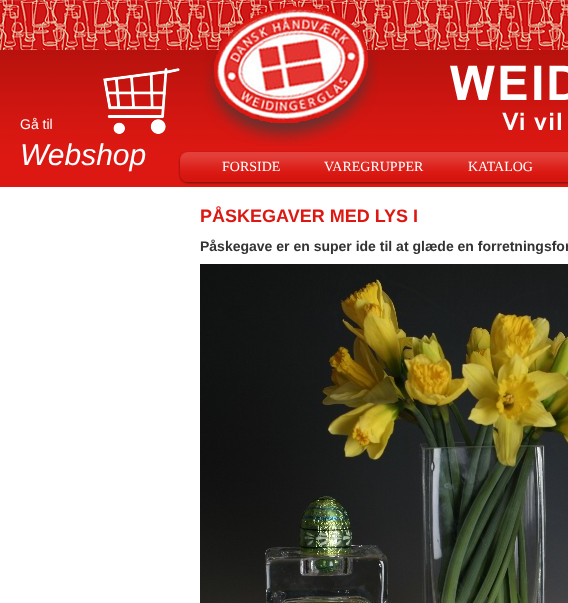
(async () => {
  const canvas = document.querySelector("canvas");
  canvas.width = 568;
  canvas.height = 603;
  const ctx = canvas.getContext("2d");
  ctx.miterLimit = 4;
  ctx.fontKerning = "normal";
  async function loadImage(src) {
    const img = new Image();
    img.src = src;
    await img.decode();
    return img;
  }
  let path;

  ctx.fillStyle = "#ffffff";
  ctx.fillRect(0, 0, 568, 603);
  ctx.drawImage(await loadImage("img/1.png"), 0, 0, 568, 187);
  ctx.drawImage(await loadImage("img/2.png"), 204, 6, 174, 140);
  ctx.drawImage(await loadImage("img/3.png"), 450, 65, 118, 65);
  ctx.drawImage(await loadImage("img/4.png"), 103, 68, 77, 66);
  ctx.save();
  path = new Path2D("M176 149H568V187H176ZM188 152H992C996.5 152 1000 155.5 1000 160V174C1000 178.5 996.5 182 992 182H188C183.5 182 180 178.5 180 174V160C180 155.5 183.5 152 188 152Z");
  ctx.clip(path, "evenodd");
  ctx.fillStyle = "rgba(0, 0, 0, 0.5)";
  ctx.filter = "blur(1px)";
  ctx.beginPath();
  ctx.roundRect(180, 153, 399, 30, 8);
  ctx.fill();
  ctx.filter = "none";
  ctx.restore();
  ctx.drawImage(await loadImage("img/5.png"), 180, 152, 388, 30);
  ctx.drawImage(await loadImage("img/6.png"), 200, 264, 368, 339);
  ctx.font = "14px Liberation Sans";
  ctx.fillText("Gå til", 20, 129);
  ctx.font = "italic 30px Liberation Sans";
  ctx.fillText("Webshop", 20, 165);
  ctx.font = "14px Liberation Serif";
  for (const [text, x, y] of [
    ["FORSIDE", 222, 171],
    ["VAREGRUPPER", 324, 171],
    ["KATALOG", 468, 171],
  ]) {
    ctx.fillText(text, x, y);
  }
  ctx.font = "bold 18px Liberation Sans";
  ctx.fillStyle = "#dd1812";
  ctx.fillText("PÅSKEGAVER MED LYS I", 200, 222);
  ctx.font = "bold 14px Liberation Sans";
  ctx.fillStyle = "#333333";
  ctx.fillText("Påskegave er en super ide til at glæde en forretningsfor", 200, 251);
})();
